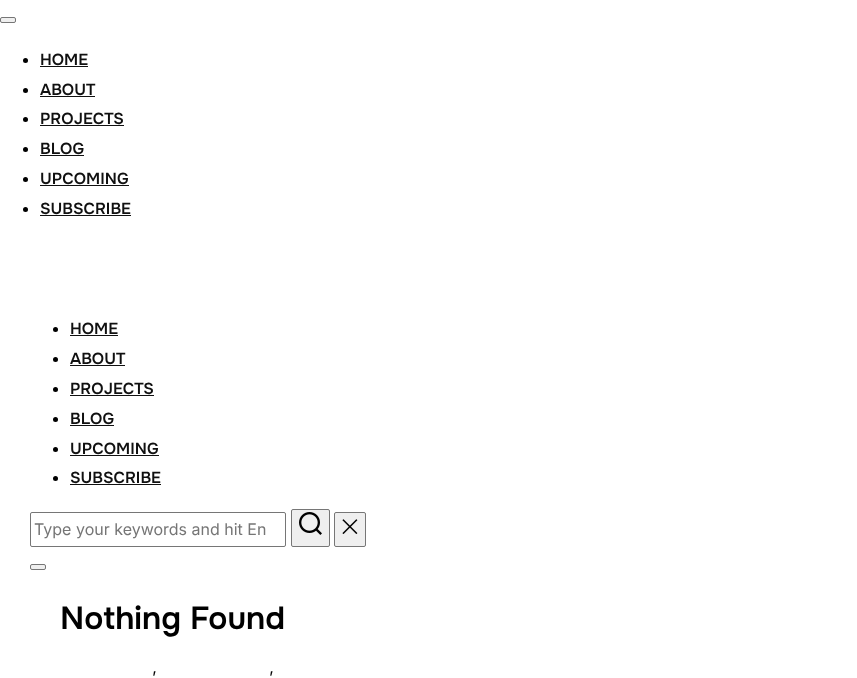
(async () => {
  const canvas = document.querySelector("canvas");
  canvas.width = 857;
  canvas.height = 678;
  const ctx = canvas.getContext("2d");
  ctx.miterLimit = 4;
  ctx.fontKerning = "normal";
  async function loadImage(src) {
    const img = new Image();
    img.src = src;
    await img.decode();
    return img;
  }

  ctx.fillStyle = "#ffffff";
  ctx.fillRect(0, 0, 857, 678);
  ctx.fillStyle = "#efefef";
  ctx.beginPath();
  ctx.roundRect(0.5, 17.5, 15, 5, 1.5);
  ctx.fill();
  ctx.strokeStyle = "#767676";
  ctx.stroke();
  ctx.fillStyle = "#000000";
  ctx.beginPath();
  ctx.arc(25.5, 60.5, 2.5, 0, Math.PI * 2);
  ctx.fill();
  ctx.fillStyle = "#101010";
  ctx.fillRect(40, 66, 48, 1);
  ctx.fillStyle = "#000000";
  ctx.beginPath();
  ctx.arc(25.5, 90.5, 2.5, 0, Math.PI * 2);
  ctx.fill();
  ctx.fillStyle = "#101010";
  ctx.fillRect(40, 96, 55, 1);
  ctx.fillStyle = "#000000";
  ctx.beginPath();
  ctx.arc(25.5, 119.5, 2.5, 0, Math.PI * 2);
  ctx.fill();
  ctx.fillStyle = "#101010";
  ctx.fillRect(40, 125, 84, 1);
  ctx.fillStyle = "#000000";
  ctx.beginPath();
  ctx.arc(25.5, 149.5, 2.5, 0, Math.PI * 2);
  ctx.fill();
  ctx.fillStyle = "#101010";
  ctx.fillRect(40, 155, 44, 1);
  ctx.fillStyle = "#000000";
  ctx.beginPath();
  ctx.arc(25.5, 179.5, 2.5, 0, Math.PI * 2);
  ctx.fill();
  ctx.fillStyle = "#101010";
  ctx.fillRect(40, 185, 89, 1);
  ctx.fillStyle = "#000000";
  ctx.beginPath();
  ctx.arc(25.5, 209.5, 2.5, 0, Math.PI * 2);
  ctx.fill();
  ctx.fillStyle = "#101010";
  ctx.fillRect(40, 215, 91, 1);
  ctx.fillStyle = "#000000";
  ctx.beginPath();
  ctx.arc(55.5, 329.5, 2.5, 0, Math.PI * 2);
  ctx.fill();
  ctx.fillStyle = "#101010";
  ctx.fillRect(70, 335, 48, 1);
  ctx.fillStyle = "#000000";
  ctx.beginPath();
  ctx.arc(55.5, 359.5, 2.5, 0, Math.PI * 2);
  ctx.fill();
  ctx.fillStyle = "#101010";
  ctx.fillRect(70, 365, 55, 1);
  ctx.fillStyle = "#000000";
  ctx.beginPath();
  ctx.arc(55.5, 389.5, 2.5, 0, Math.PI * 2);
  ctx.fill();
  ctx.fillStyle = "#101010";
  ctx.fillRect(70, 395, 84, 1);
  ctx.fillStyle = "#000000";
  ctx.beginPath();
  ctx.arc(55.5, 419.5, 2.5, 0, Math.PI * 2);
  ctx.fill();
  ctx.fillStyle = "#101010";
  ctx.fillRect(70, 425, 44, 1);
  ctx.fillStyle = "#000000";
  ctx.beginPath();
  ctx.arc(55.5, 449.5, 2.5, 0, Math.PI * 2);
  ctx.fill();
  ctx.fillStyle = "#101010";
  ctx.fillRect(70, 455, 89, 1);
  ctx.fillStyle = "#000000";
  ctx.beginPath();
  ctx.arc(55.5, 478.5, 2.5, 0, Math.PI * 2);
  ctx.fill();
  ctx.fillStyle = "#101010";
  ctx.fillRect(70, 484, 91, 1);
  ctx.beginPath();
  ctx.roundRect(30.5, 512.5, 255, 34, 1.5);
  ctx.stroke();
  ctx.fillStyle = "#efefef";
  ctx.beginPath();
  ctx.roundRect(291.5, 509.5, 38, 37, 1.5);
  ctx.fill();
  ctx.stroke();
  ctx.drawImage(await loadImage("img/1.png"), 299, 512, 23, 23);
  ctx.beginPath();
  ctx.roundRect(334.5, 512.5, 31, 34, 1.5);
  ctx.fill();
  ctx.stroke();
  ctx.drawImage(await loadImage("img/2.png"), 342, 519, 16, 15);
  ctx.beginPath();
  ctx.roundRect(30.5, 564.5, 15, 5, 1.5);
  ctx.fill();
  ctx.stroke();
  ctx.font = "600 16px Onest";
  ctx.fillStyle = "#101010";
  for (const [text, x, y] of [
    ["HOME", 40, 65],
    ["ABOUT", 40, 95],
    ["PROJECTS", 40, 124],
    ["BLOG", 40, 154],
    ["UPCOMING", 40, 184],
    ["SUBSCRIBE", 40, 214],
    ["HOME", 70, 334],
    ["ABOUT", 70, 364],
    ["PROJECTS", 70, 394],
    ["BLOG", 70, 424],
    ["UPCOMING", 70, 454],
    ["SUBSCRIBE", 70, 483],
  ]) {
    ctx.fillText(text, x, y);
  }
  ctx.font = "16px Inter";
  ctx.fillStyle = "#757575";
  ctx.fillText("Type your keywords and hit En", 34, 535);
  ctx.font = "600 32px Onest";
  ctx.fillStyle = "#000000";
  ctx.fillText("Nothing Found", 60, 629);
  ctx.font = "16px Inter";
  ctx.fillText("’", 152, 683);
  ctx.fillText("’", 269, 683);
})();
